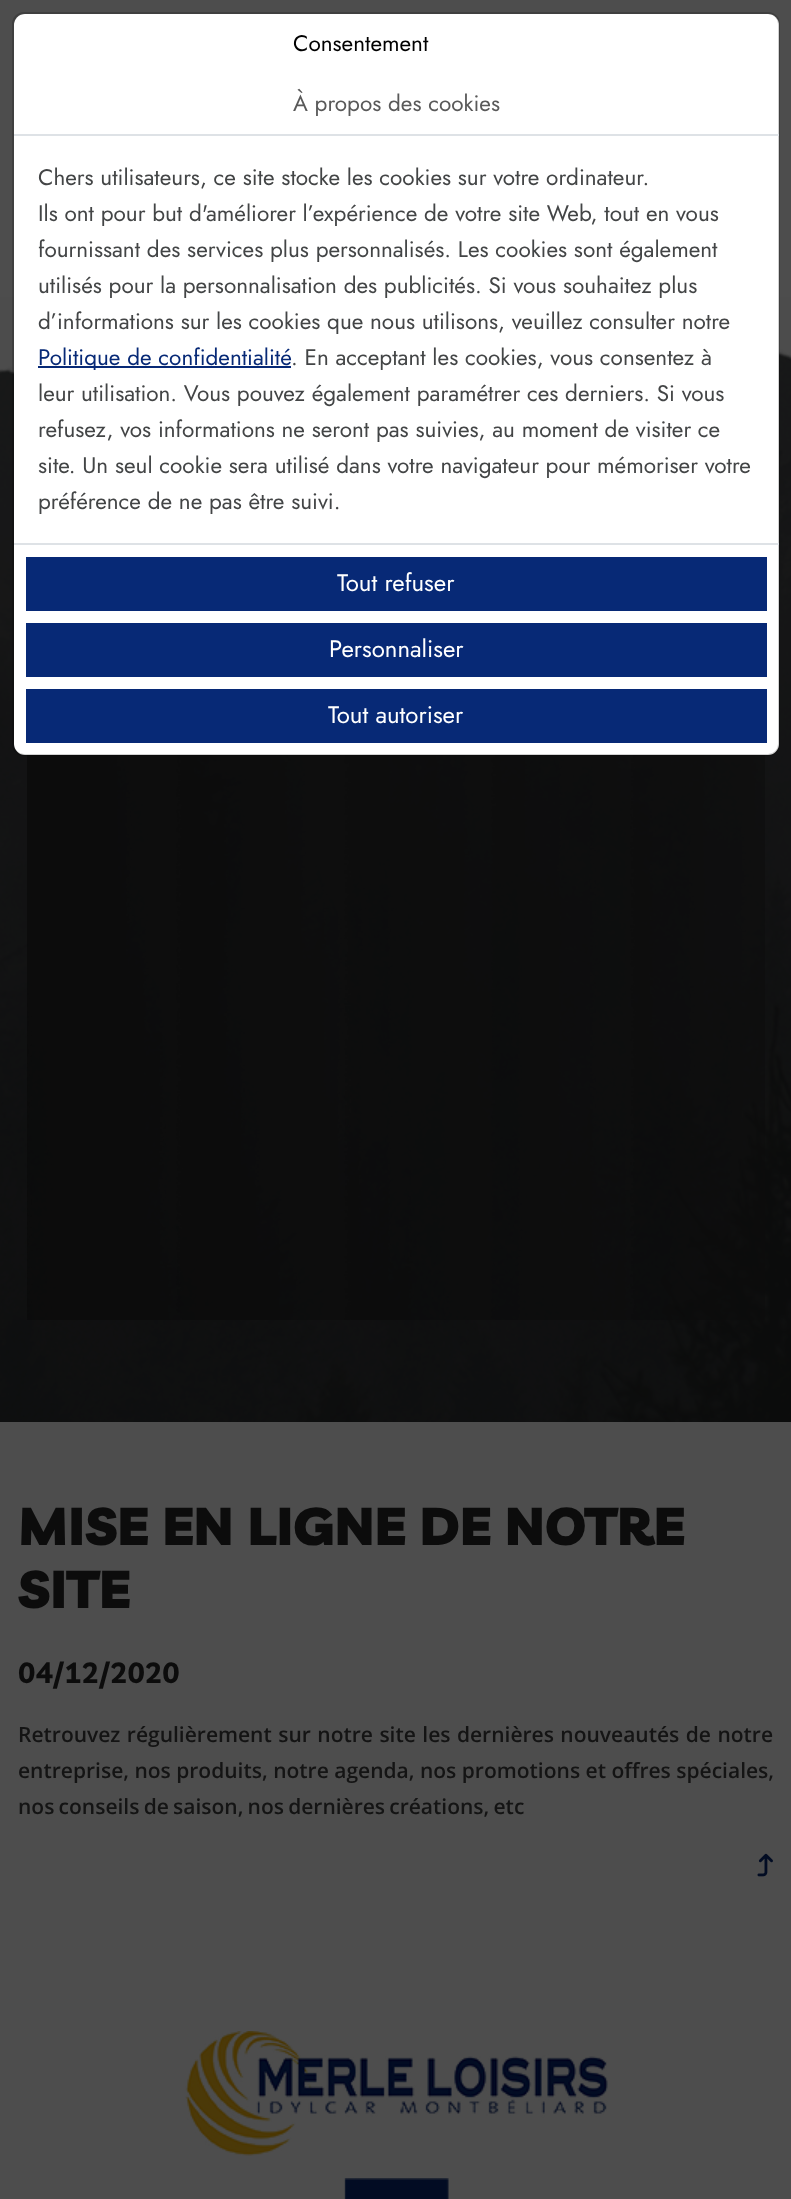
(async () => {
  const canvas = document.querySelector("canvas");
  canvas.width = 791;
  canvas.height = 2199;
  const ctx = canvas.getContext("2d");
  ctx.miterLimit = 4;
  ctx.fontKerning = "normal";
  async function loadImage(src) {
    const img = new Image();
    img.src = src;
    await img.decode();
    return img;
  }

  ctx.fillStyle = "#4d4d4d";
  ctx.fillRect(0, 0, 791, 2199);
  ctx.drawImage(await loadImage("img/1.png"), 0, 349, 791, 1073);
  ctx.drawImage(await loadImage("img/2.png"), 0, 297, 791, 78);
  ctx.fillStyle = "#ffffff";
  ctx.beginPath();
  ctx.roundRect(14, 14, 765, 741, 11);
  ctx.fill();
  ctx.drawImage(await loadImage("img/3.png"), 27, 755, 738, 565);
  ctx.beginPath();
  ctx.roundRect(13, 13, 766, 742, 11);
  ctx.strokeStyle = "rgba(0, 0, 0, 0.18)";
  ctx.lineWidth = 2;
  ctx.stroke();
  for (const [x, y, w, h, color] of [
    [14, 134, 765, 2, "#dee2e6"],
    [38, 366, 253, 2, "#072976"],
    [14, 543, 765, 2, "#dee2e6"],
    [26, 557, 741, 54, "#072976"],
    [26, 623, 741, 54, "#072976"],
    [26, 689, 741, 54, "#072976"],
  ]) {
    ctx.fillStyle = color;
    ctx.fillRect(x, y, w, h);
  }
  ctx.drawImage(await loadImage("img/4.png"), 757, 1853, 16, 24);
  ctx.drawImage(await loadImage("img/5.png"), 185, 2031, 423, 125);
  ctx.drawImage(await loadImage("img/6.png"), 344, 2178, 105, 21);
  ctx.font = "22.5px Jost";
  ctx.fillStyle = "#000000";
  ctx.fillText("Consentement", 293, 51);
  ctx.fillStyle = "#595959";
  ctx.fillText("À propos des cookies", 293, 111);
  ctx.fillStyle = "#434546";
  for (const [text, x, y] of [
    ["Chers utilisateurs, ce site stocke les cookies sur votre ordinateur.", 38, 185],
    ["Ils ont pour but d'améliorer l’expérience de votre site Web, tout en vous", 38, 221],
    ["fournissant des services plus personnalisés. Les cookies sont également", 38, 257],
    ["utilisés pour la personnalisation des publicités. Si vous souhaitez plus", 38, 293],
    ["d’informations sur les cookies que nous utilisons, veuillez consulter notre", 38, 329],
  ]) {
    ctx.fillText(text, x, y);
  }
  ctx.fillStyle = "#072976";
  ctx.fillText("Politique de confidentialité", 38, 365);
  ctx.fillStyle = "#434546";
  for (const [text, x, y] of [
    [". En acceptant les cookies, vous consentez à", 291, 365],
    ["leur utilisation. Vous pouvez également paramétrer ces derniers. Si vous", 38, 401],
    ["refusez, vos informations ne seront pas suivies, au moment de visiter ce", 38, 437],
    ["site. Un seul cookie sera utilisé dans votre navigateur pour mémoriser votre", 38, 473],
    ["préférence de ne pas être suivi.", 38, 509],
  ]) {
    ctx.fillText(text, x, y);
  }
  ctx.font = "24px Jost";
  ctx.fillStyle = "#ffffff";
  for (const [text, x, y] of [
    ["Tout refuser", 337, 591],
    ["Personnaliser", 329, 657],
    ["Tout autoriser", 328, 723],
  ]) {
    ctx.fillText(text, x, y);
  }
  ctx.font = "900 52.5px Livvic";
  ctx.fillStyle = "#0c0c0c";
  ctx.fillText("MISE EN LIGNE DE NOTRE", 18, 1545);
  ctx.fillText("SITE", 18, 1608);
  ctx.font = "bold 29px Livvic";
  ctx.fillText("04/12/2020", 18, 1683);
  ctx.wordSpacing = "1px";
  ctx.font = "600 21px Open Sans";
  ctx.fillStyle = "#141414";
  ctx.fillText("Retrouvez régulièrement sur notre site les dernières nouveautés de notre", 18, 1742);
  ctx.wordSpacing = "0px";
  ctx.fillText("entreprise, nos produits, notre agenda, nos promotions et offres spéciales,", 18, 1778);
  ctx.wordSpacing = "-1.25px";
  ctx.fillText("nos conseils de saison, nos dernières créations, etc", 18, 1814);
})();
